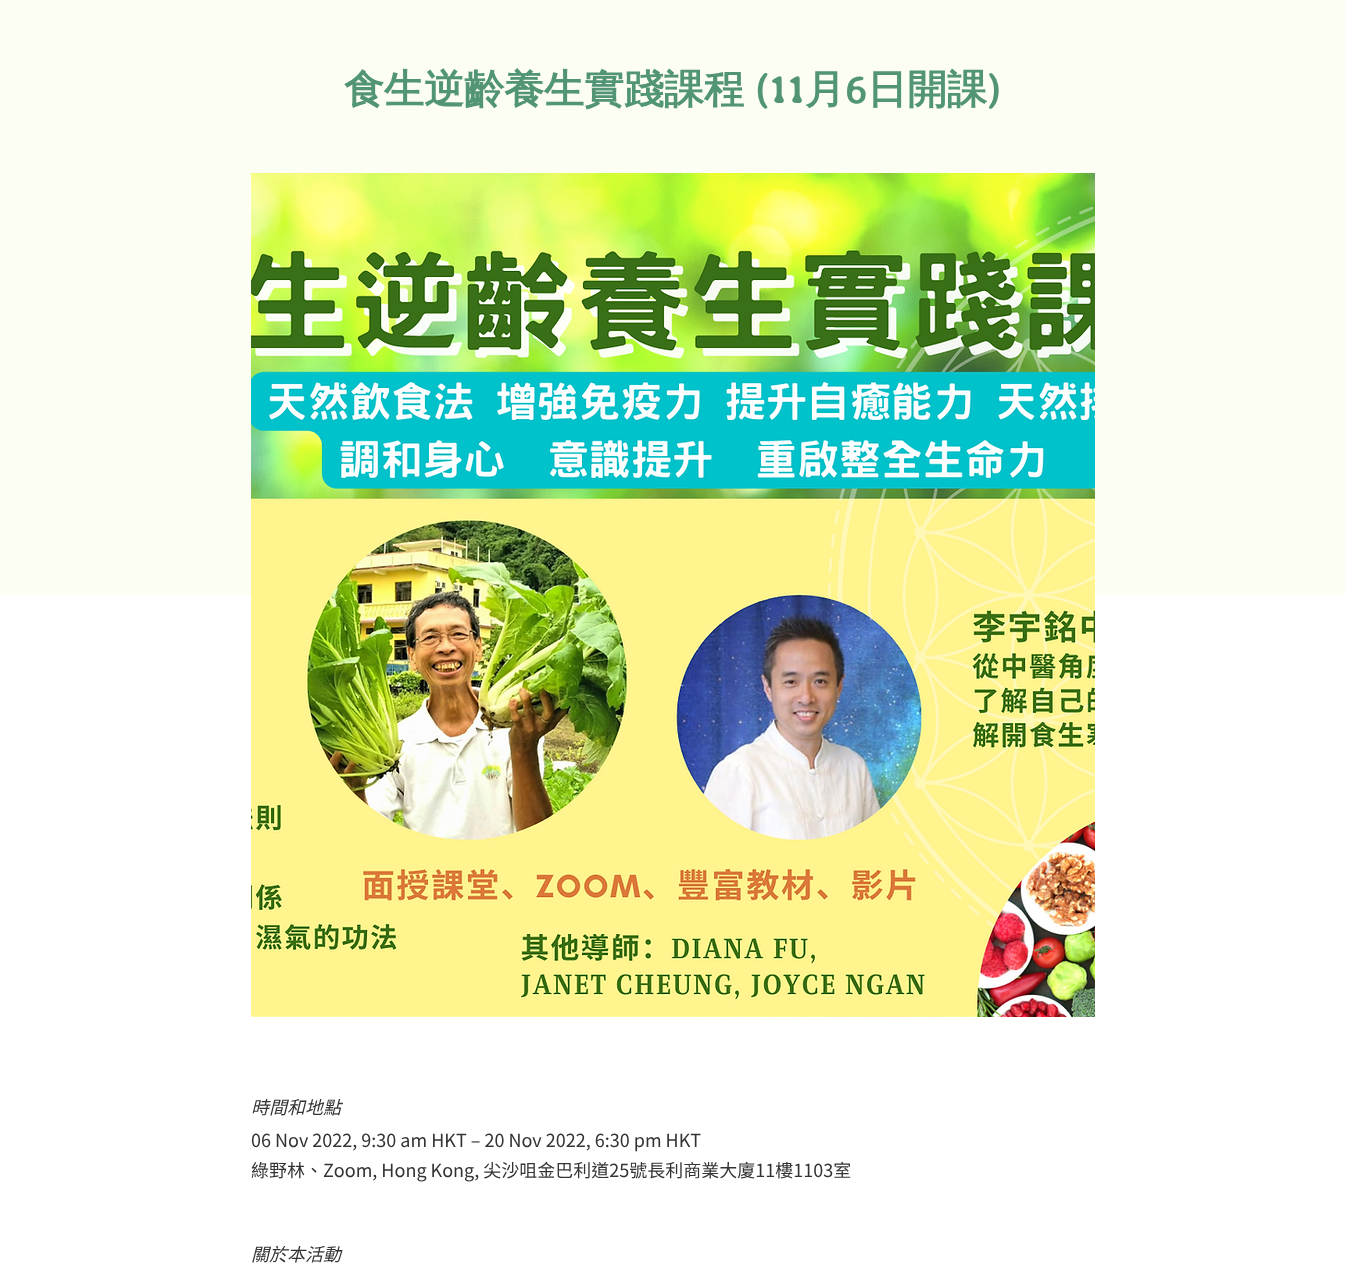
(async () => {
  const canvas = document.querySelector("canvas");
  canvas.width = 1345;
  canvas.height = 1275;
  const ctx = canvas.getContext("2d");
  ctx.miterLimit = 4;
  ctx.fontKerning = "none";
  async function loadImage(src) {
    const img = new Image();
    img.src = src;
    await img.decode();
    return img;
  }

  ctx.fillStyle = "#ffffff";
  ctx.fillRect(0, 0, 1345, 1275);
  ctx.fillStyle = "#fcfef4";
  ctx.fillRect(0, 0, 1345, 595);
  ctx.drawImage(await loadImage("img/1.png"), 251, 173, 844, 844);
  ctx.font = "bold 40px WenQuanYi Zen Hei";
  ctx.fillStyle = "#529575";
  ctx.fillText("食生逆齡養生實踐課程", 344, 103);
  ctx.font = "bold 40px Averia Libre";
  ctx.fillText("(11", 755, 103);
  ctx.font = "bold 40px WenQuanYi Zen Hei";
  ctx.fillText("月", 805, 103);
  ctx.font = "bold 40px Averia Libre";
  ctx.fillText("6", 845, 103);
  ctx.font = "bold 40px WenQuanYi Zen Hei";
  ctx.fillText("日開課", 867, 103);
  ctx.font = "bold 40px Averia Libre";
  ctx.fillText(")", 987, 103);
  ctx.font = "italic 18px Noto Sans HK";
  ctx.fillStyle = "#333333";
  ctx.fillText("時間和地點", 251, 1114);
  ctx.font = "18px Noto Sans HK";
  ctx.fillText("06 Nov 2022, 9:30 am HKT – 20 Nov 2022, 6:30 pm HKT", 251, 1147);
  ctx.fillText("綠野林、Zoom, Hong Kong, 尖沙咀金巴利道25號長利商業大廈11樓1103室", 251, 1177);
  ctx.font = "italic 18px Noto Sans HK";
  ctx.fillText("關於本活動", 251, 1261);
})();
